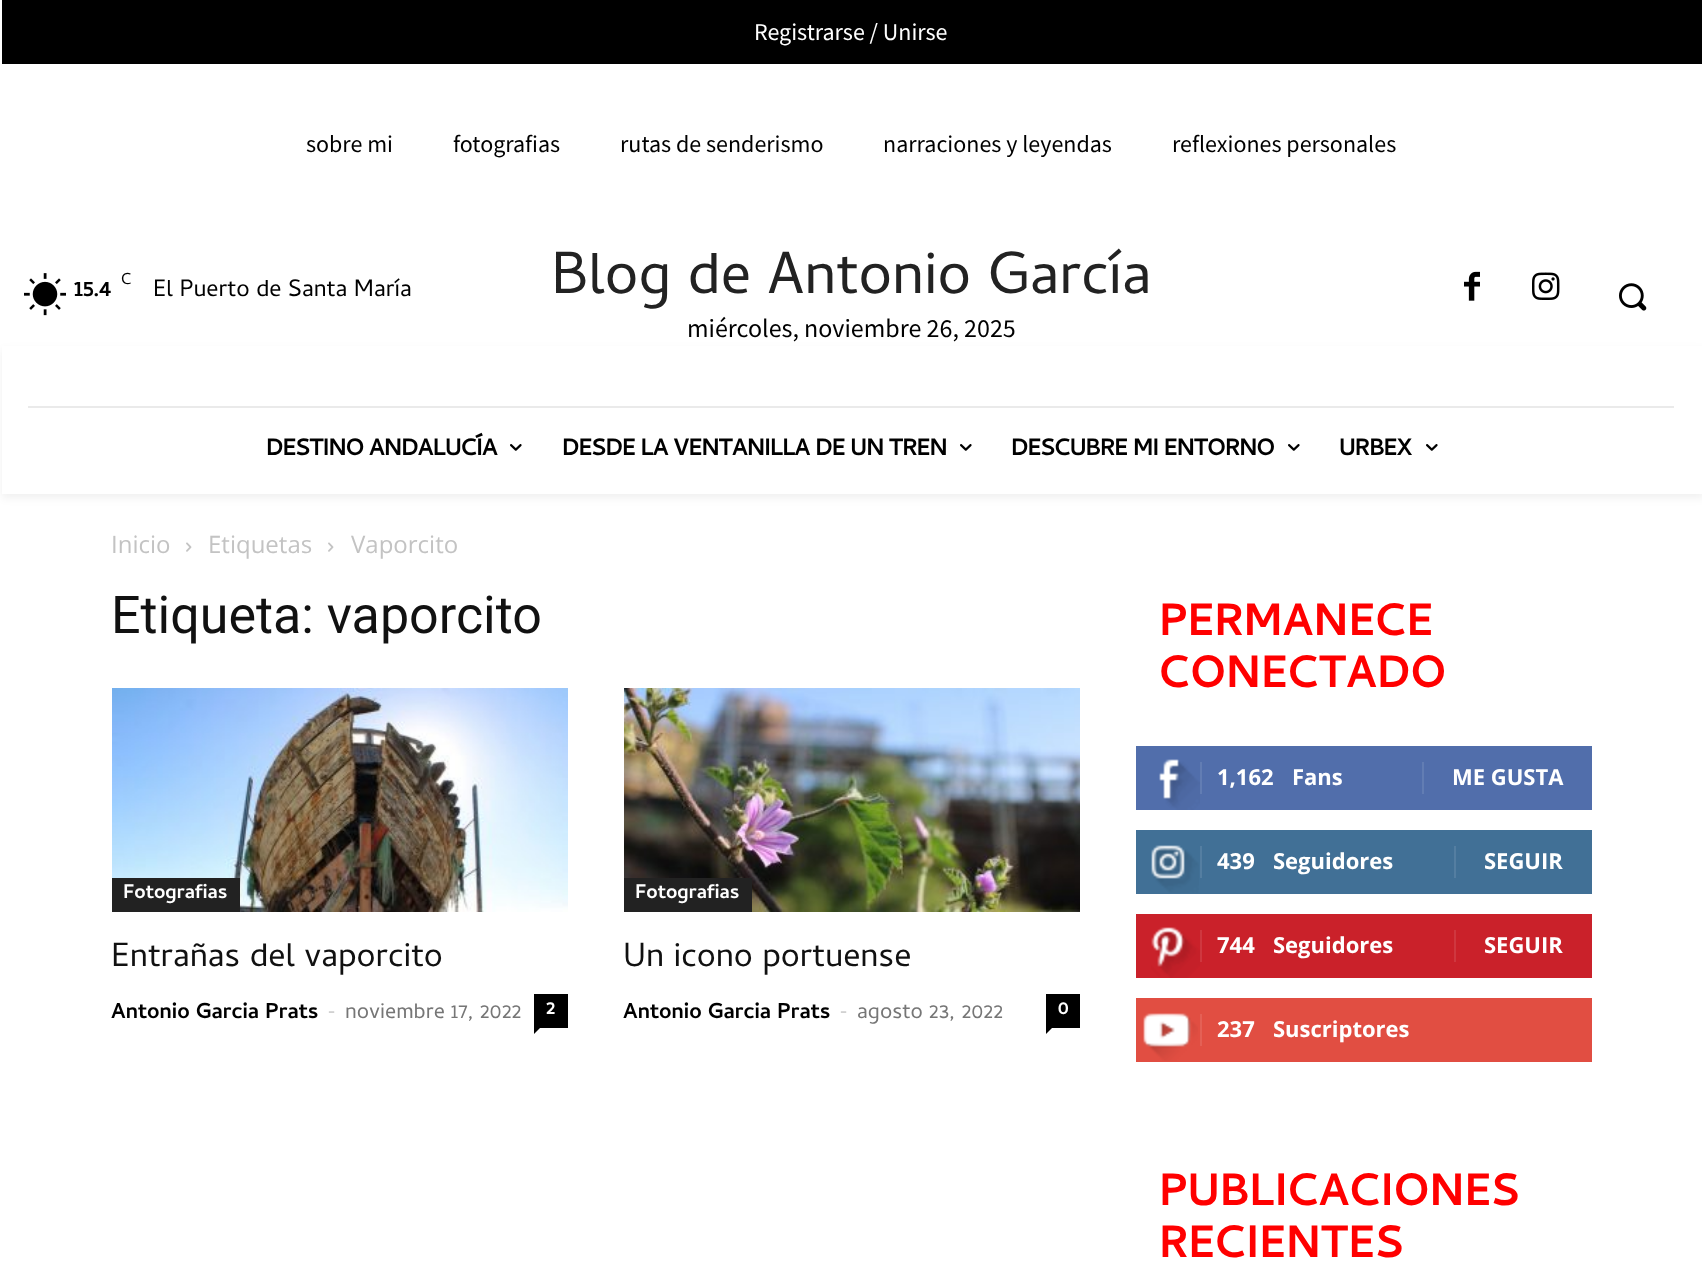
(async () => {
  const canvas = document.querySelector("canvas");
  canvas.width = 1702;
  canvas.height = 1285;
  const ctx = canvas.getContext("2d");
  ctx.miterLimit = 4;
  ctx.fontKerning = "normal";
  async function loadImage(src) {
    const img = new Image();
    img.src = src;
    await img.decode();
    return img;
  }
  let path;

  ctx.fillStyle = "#ffffff";
  ctx.fillRect(0, 0, 1702, 1285);
  ctx.fillStyle = "#000000";
  ctx.fillRect(2, 0, 1700, 64);
  ctx.drawImage(await loadImage("img/1.png"), 24, 273, 42, 43);
  ctx.drawImage(await loadImage("img/2.png"), 1464, 271, 16, 30);
  ctx.drawImage(await loadImage("img/3.png"), 1532, 272, 28, 28);
  ctx.drawImage(await loadImage("img/4.png"), 1619, 283, 28, 28);
  ctx.fillStyle = "#eaeaea";
  ctx.fillRect(28, 406, 1646, 2);
  ctx.save();
  path = new Path2D("M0 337H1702V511H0ZM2 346H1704V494H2Z");
  ctx.clip(path, "evenodd");
  ctx.fillStyle = "rgba(0, 0, 0, 0.06)";
  ctx.filter = "blur(4px)";
  ctx.beginPath();
  ctx.rect(2, 350, 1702, 148);
  ctx.fill();
  ctx.filter = "none";
  ctx.restore();
  ctx.drawImage(await loadImage("img/5.png"), 510, 444, 12, 7);
  ctx.drawImage(await loadImage("img/5.png"), 960, 444, 12, 7);
  ctx.drawImage(await loadImage("img/5.png"), 1288, 444, 12, 7);
  ctx.drawImage(await loadImage("img/5.png"), 1426, 444, 12, 7);
  ctx.drawImage(await loadImage("img/6.png"), 186, 542, 6, 10);
  ctx.drawImage(await loadImage("img/6.png"), 328, 542, 6, 10);
  ctx.drawImage(await loadImage("img/7.png"), 112, 688, 456, 224);
  ctx.fillStyle = "#222222";
  ctx.fillRect(112, 878, 128, 34);
  ctx.fillStyle = "#000000";
  ctx.fillRect(534, 994, 34, 34);
  path = new Path2D("M534 1028H540L534 1034Z");
  ctx.fill(path);
  ctx.drawImage(await loadImage("img/8.png"), 624, 688, 456, 224);
  ctx.fillStyle = "#222222";
  ctx.fillRect(624, 878, 128, 34);
  ctx.fillStyle = "#000000";
  ctx.fillRect(1046, 994, 34, 34);
  path = new Path2D("M1046 1028H1052L1046 1034Z");
  ctx.fill(path);
  ctx.fillStyle = "#516eab";
  ctx.fillRect(1136, 746, 456, 64);
  ctx.drawImage(await loadImage("img/9.png"), 1159, 759, 41, 51);
  for (const [x, y, w, h, color] of [
    [1200, 762, 2, 32, "#627db3"],
    [1422, 762, 2, 32, "#627db3"],
    [1136, 830, 456, 64, "#417096"],
  ]) {
    ctx.fillStyle = color;
    ctx.fillRect(x, y, w, h);
  }
  ctx.drawImage(await loadImage("img/10.png"), 1151, 845, 48, 48);
  for (const [x, y, w, h, color] of [
    [1200, 846, 2, 32, "#547ea1"],
    [1454, 846, 2, 32, "#547ea1"],
    [1136, 914, 456, 64, "#ca212a"],
  ]) {
    ctx.fillStyle = color;
    ctx.fillRect(x, y, w, h);
  }
  ctx.drawImage(await loadImage("img/11.png"), 1151, 927, 49, 51);
  for (const [x, y, w, h, color] of [
    [1200, 930, 2, 32, "#cf373f"],
    [1454, 930, 2, 32, "#cf373f"],
    [1136, 998, 456, 64, "#e14e42"],
  ]) {
    ctx.fillStyle = color;
    ctx.fillRect(x, y, w, h);
  }
  ctx.drawImage(await loadImage("img/12.png"), 1143, 1013, 55, 48);
  ctx.fillStyle = "#e46055";
  ctx.fillRect(1200, 1014, 2, 32);
  ctx.font = "24px Source Sans Pro";
  ctx.fillStyle = "#ffffff";
  ctx.fillText("Registrarse / Unirse", 754, 40);
  ctx.fillStyle = "#000000";
  for (const [text, x, y] of [
    ["sobre mi", 306, 152],
    ["fotografias", 453, 152],
    ["rutas de senderismo", 620, 152],
    ["narraciones y leyendas", 883, 152],
    ["reflexiones personales", 1172, 152],
  ]) {
    ctx.fillText(text, x, y);
  }
  ctx.font = "16px Cambay";
  ctx.fillText("C", 121, 284);
  ctx.font = "bold 24px Cambay";
  ctx.fillText("15.4", 74, 296);
  ctx.font = "24px Cambay";
  ctx.fillText("El Puerto de Santa María", 153, 296);
  ctx.font = "60px Cambay";
  ctx.fillStyle = "#222222";
  ctx.fillText("Blog de Antonio García", 551, 293);
  ctx.font = "26px Source Sans Pro";
  ctx.fillStyle = "#000000";
  ctx.fillText("miércoles, noviembre 26, 2025", 687, 337);
  ctx.letterSpacing = "-1px";
  ctx.font = "bold 24px Cambay";
  for (const [text, x, y] of [
    ["DESTINO ANDALUCÍA", 266, 455],
    ["DESDE LA VENTANILLA DE UN TREN", 562, 455],
    ["DESCUBRE MI ENTORNO", 1011, 455],
    ["URBEX", 1339, 455],
  ]) {
    ctx.fillText(text, x, y);
  }
  ctx.letterSpacing = "0px";
  ctx.font = "24px Open Sans";
  ctx.fillStyle = "#c3c3c3";
  for (const [text, x, y] of [
    ["Inicio", 111, 553],
    ["Etiquetas", 208, 553],
    ["Vaporcito", 351, 553],
  ]) {
    ctx.fillText(text, x, y);
  }
  ctx.font = "52px Roboto";
  ctx.fillStyle = "#111111";
  ctx.fillText("Etiqueta: vaporcito", 111, 633);
  ctx.font = "bold 20px Cambay";
  ctx.fillStyle = "#ffffff";
  ctx.fillText("Fotografias", 123, 898);
  ctx.font = "34px Cambay";
  ctx.fillStyle = "#111111";
  ctx.fillText("Entrañas del vaporcito", 111, 966);
  ctx.font = "bold 22px Cambay";
  ctx.fillStyle = "#000000";
  ctx.fillText("Antonio Garcia Prats", 111, 1018);
  ctx.font = "22px Open Sans";
  ctx.fillStyle = "#cccccc";
  ctx.fillText("-", 328, 1018);
  ctx.font = "22px Cambay";
  ctx.fillStyle = "#767676";
  ctx.fillText("noviembre 17, 2022", 345, 1018);
  ctx.font = "bold 20px Cambay";
  ctx.fillStyle = "#ffffff";
  ctx.fillText("2", 546, 1014);
  ctx.fillText("Fotografias", 635, 898);
  ctx.font = "34px Cambay";
  ctx.fillStyle = "#111111";
  ctx.fillText("Un icono portuense", 623, 966);
  ctx.font = "bold 22px Cambay";
  ctx.fillStyle = "#000000";
  ctx.fillText("Antonio Garcia Prats", 623, 1018);
  ctx.font = "22px Open Sans";
  ctx.fillStyle = "#cccccc";
  ctx.fillText("-", 840, 1018);
  ctx.font = "22px Cambay";
  ctx.fillStyle = "#767676";
  ctx.fillText("agosto 23, 2022", 857, 1018);
  ctx.font = "bold 20px Cambay";
  ctx.fillStyle = "#ffffff";
  ctx.fillText("0", 1058, 1014);
  ctx.font = "bold 46px Cambay";
  ctx.fillStyle = "#ff0000";
  ctx.fillText("PERMANECE", 1159, 635);
  ctx.fillText("CONECTADO", 1159, 687);
  ctx.font = "bold 22px Open Sans";
  ctx.fillStyle = "#ffffff";
  for (const [text, x, y] of [
    ["1,162", 1217, 785],
    ["Fans", 1292, 785],
    ["ME GUSTA", 1452, 785],
    ["439", 1217, 869],
    ["Seguidores", 1273, 869],
    ["SEGUIR", 1484, 869],
    ["744", 1217, 953],
    ["Seguidores", 1273, 953],
    ["SEGUIR", 1484, 953],
    ["237", 1217, 1037],
    ["Suscriptores", 1273, 1037],
  ]) {
    ctx.fillText(text, x, y);
  }
  ctx.font = "bold 46px Cambay";
  ctx.fillStyle = "#ff0000";
  ctx.fillText("PUBLICACIONES", 1159, 1205);
  ctx.fillText("RECIENTES", 1159, 1257);
})();
